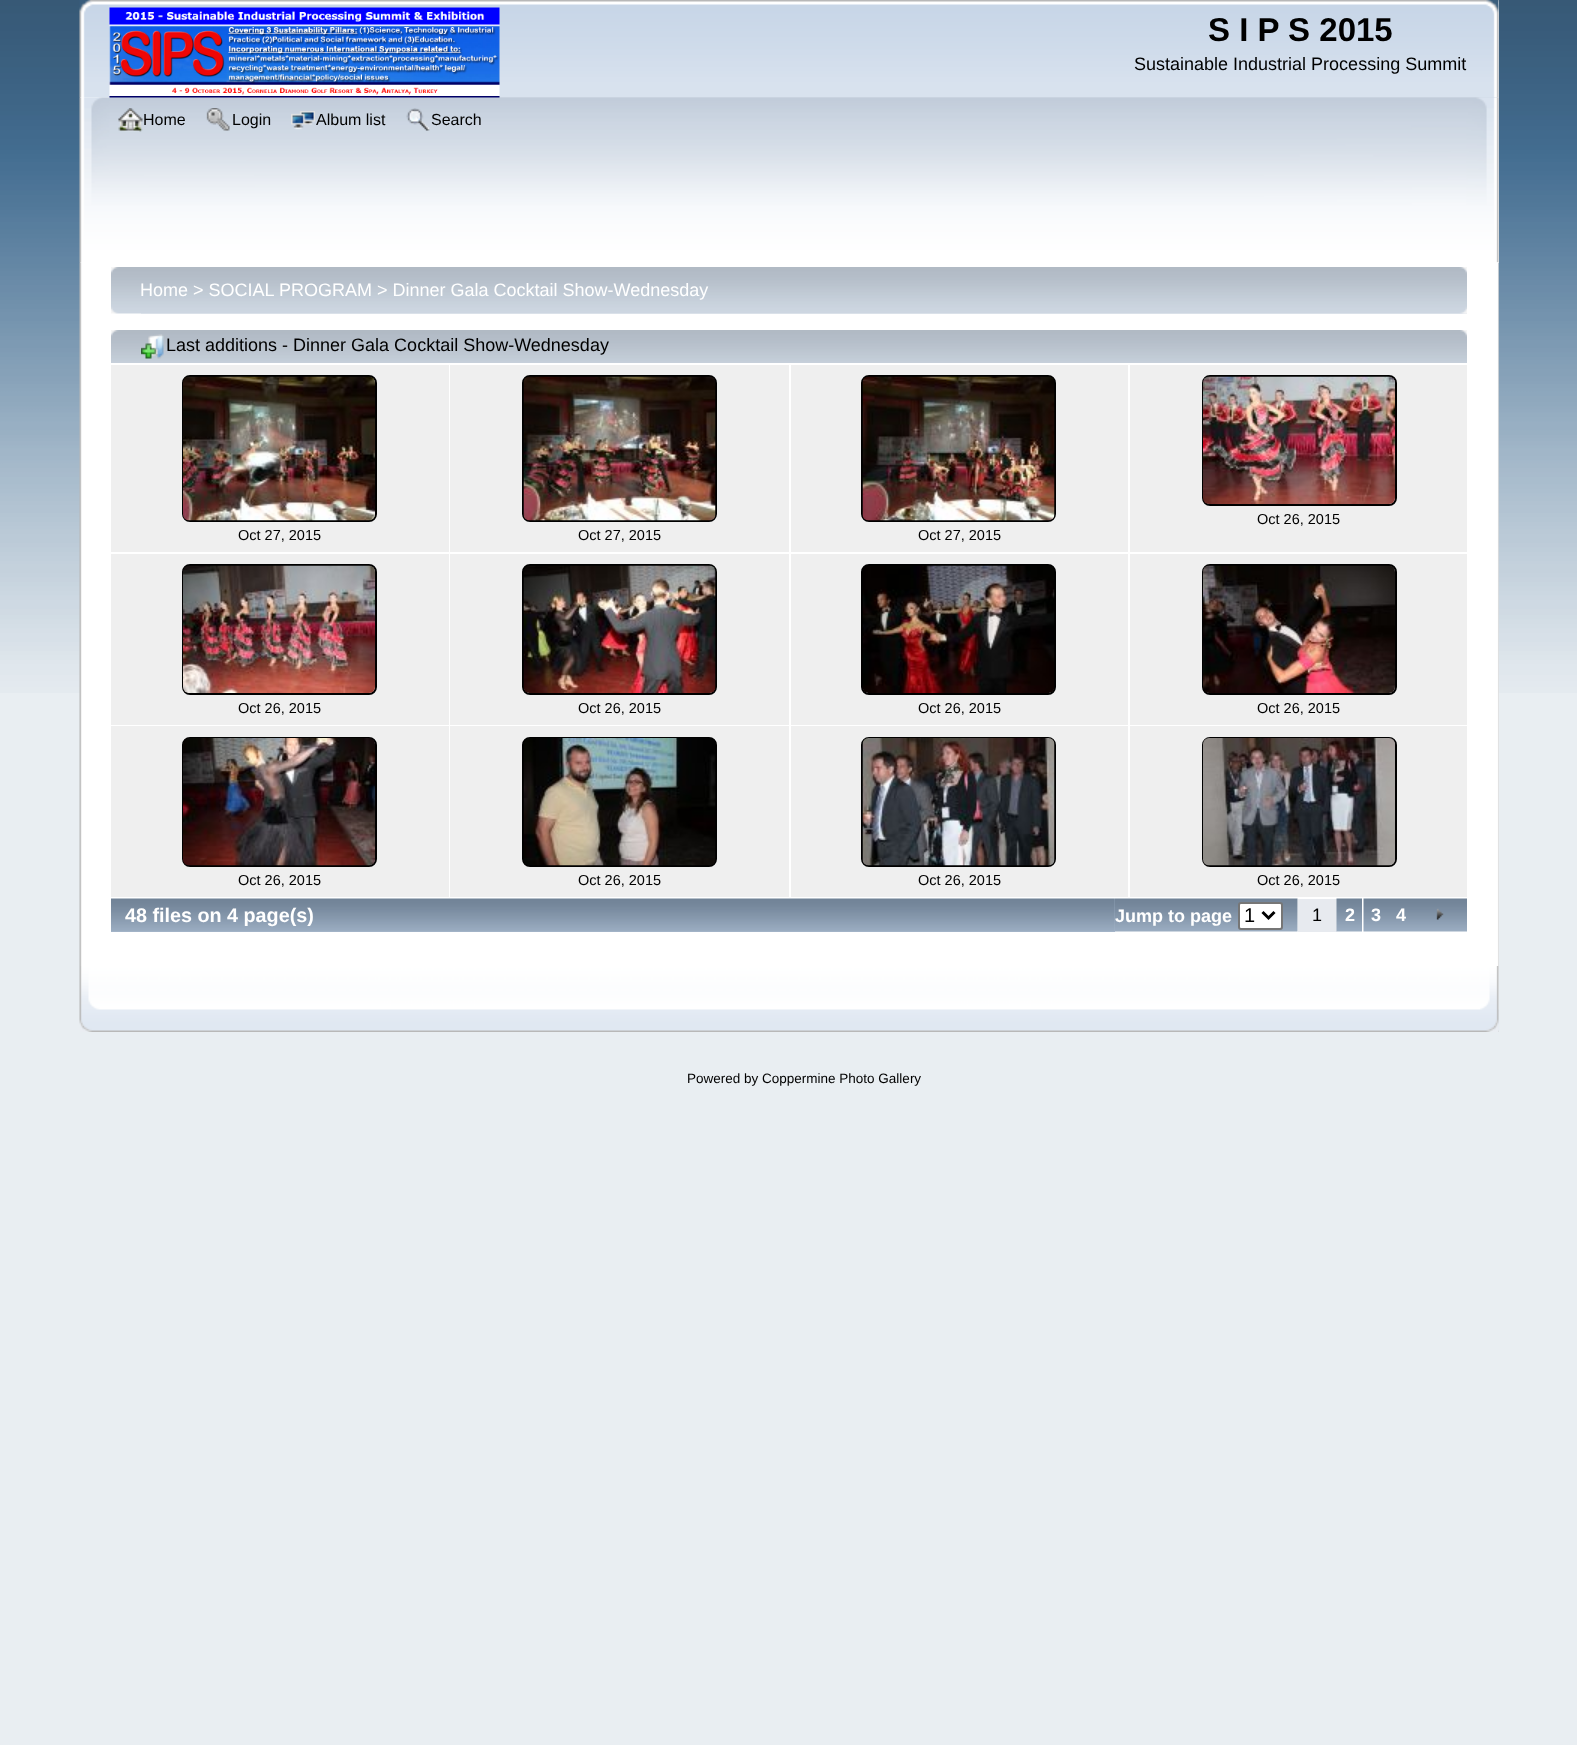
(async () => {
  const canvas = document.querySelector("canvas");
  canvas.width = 1577;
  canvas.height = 1745;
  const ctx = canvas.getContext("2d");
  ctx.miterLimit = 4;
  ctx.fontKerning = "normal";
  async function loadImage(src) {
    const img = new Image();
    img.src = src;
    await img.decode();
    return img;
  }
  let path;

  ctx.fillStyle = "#e9eef2";
  ctx.fillRect(0, 0, 1577, 1745);
  ctx.drawImage(await loadImage("img/1.png"), 0, 0, 1577, 693);
  ctx.fillStyle = "#fefefe";
  ctx.fillRect(80, 0, 1419, 263);
  ctx.drawImage(await loadImage("img/2.png"), 79, 0, 1420, 98);
  ctx.drawImage(await loadImage("img/3.png"), 109, 0, 1390, 98);
  ctx.drawImage(await loadImage("img/5.png"), 79, 97, 1420, 166);
  ctx.drawImage(await loadImage("img/6.png"), 109, 97, 1390, 166);
  ctx.drawImage(await loadImage("img/4.png"), 109, 7, 391, 91);
  ctx.drawImage(await loadImage("img/7.png"), 118, 108, 25, 24);
  ctx.drawImage(await loadImage("img/8.png"), 206, 108, 24, 23);
  ctx.drawImage(await loadImage("img/9.png"), 291, 111, 24, 19);
  ctx.drawImage(await loadImage("img/10.png"), 406, 108, 24, 23);
  ctx.drawImage(await loadImage("img/11.png"), 79, 262, 1420, 704);
  ctx.drawImage(await loadImage("img/12.png"), 1497, 262, 2, 704);
  ctx.drawImage(await loadImage("img/13.png"), 111, 267, 1356, 47);
  ctx.drawImage(await loadImage("img/14.png"), 141, 267, 1326, 47);
  ctx.drawImage(await loadImage("img/15.png"), 111, 330, 1356, 33);
  ctx.drawImage(await loadImage("img/16.png"), 1460, 330, 7, 7);
  ctx.drawImage(await loadImage("img/17.png"), 141, 334, 23, 25);
  ctx.fillStyle = "#efefef";
  ctx.fillRect(1130, 365, 337, 187);
  ctx.beginPath();
  ctx.roundRect(1203, 376, 193, 129, 7);
  ctx.strokeStyle = "#000000";
  ctx.lineWidth = 2;
  ctx.stroke();
  ctx.drawImage(await loadImage("img/18.png"), 1203, 376, 192, 128);
  ctx.fillRect(111, 365, 338, 187);
  ctx.beginPath();
  ctx.roundRect(183, 376, 193, 145, 7);
  ctx.stroke();
  ctx.drawImage(await loadImage("img/19.png"), 183, 376, 192, 145);
  ctx.fillRect(450, 365, 339, 187);
  ctx.beginPath();
  ctx.roundRect(523, 376, 193, 145, 7);
  ctx.stroke();
  ctx.drawImage(await loadImage("img/20.png"), 523, 376, 193, 145);
  ctx.fillRect(791, 365, 337, 187);
  ctx.beginPath();
  ctx.roundRect(862, 376, 193, 145, 7);
  ctx.stroke();
  ctx.drawImage(await loadImage("img/21.png"), 862, 376, 193, 145);
  ctx.fillRect(111, 554, 338, 171);
  ctx.beginPath();
  ctx.roundRect(183, 565, 193, 129, 7);
  ctx.stroke();
  ctx.drawImage(await loadImage("img/22.png"), 183, 565, 192, 128);
  ctx.fillRect(450, 554, 339, 171);
  ctx.beginPath();
  ctx.roundRect(523, 565, 193, 129, 7);
  ctx.stroke();
  ctx.drawImage(await loadImage("img/23.png"), 523, 565, 193, 128);
  ctx.fillRect(791, 554, 337, 171);
  ctx.beginPath();
  ctx.roundRect(862, 565, 193, 129, 7);
  ctx.stroke();
  ctx.drawImage(await loadImage("img/24.png"), 862, 565, 193, 128);
  ctx.fillRect(1130, 554, 337, 171);
  ctx.beginPath();
  ctx.roundRect(1203, 565, 193, 129, 7);
  ctx.stroke();
  ctx.drawImage(await loadImage("img/25.png"), 1203, 565, 192, 128);
  ctx.fillRect(111, 726, 338, 171);
  ctx.beginPath();
  ctx.roundRect(183, 738, 193, 128, 7);
  ctx.stroke();
  ctx.drawImage(await loadImage("img/26.png"), 183, 738, 192, 128);
  ctx.fillRect(450, 726, 339, 171);
  ctx.beginPath();
  ctx.roundRect(523, 738, 193, 128, 7);
  ctx.stroke();
  ctx.drawImage(await loadImage("img/27.png"), 523, 738, 193, 128);
  ctx.fillRect(791, 726, 337, 171);
  ctx.beginPath();
  ctx.roundRect(862, 738, 193, 128, 7);
  ctx.stroke();
  ctx.drawImage(await loadImage("img/28.png"), 862, 738, 193, 128);
  ctx.fillRect(1130, 726, 337, 171);
  ctx.beginPath();
  ctx.roundRect(1203, 738, 193, 128, 7);
  ctx.stroke();
  ctx.drawImage(await loadImage("img/29.png"), 1203, 738, 192, 128);
  ctx.fillStyle = "#a8b8cc";
  ctx.fillRect(111, 899, 1004, 33);
  ctx.drawImage(await loadImage("img/30.png"), 111, 898, 1004, 34);
  ctx.drawImage(await loadImage("img/31.png"), 1114, 898, 184, 34);
  ctx.fillStyle = "#ffffff";
  ctx.beginPath();
  ctx.roundRect(1239, 903, 43, 26, 2);
  ctx.fill();
  ctx.strokeStyle = "#767676";
  ctx.stroke();
  path = new Path2D("M1262.5 912L1268.5 918L1274.5 912");
  ctx.strokeStyle = "#000000";
  ctx.lineWidth = 3;
  ctx.stroke(path);
  ctx.fillStyle = "#e7eaef";
  ctx.fillRect(1298, 899, 39, 33);
  ctx.drawImage(await loadImage("img/32.png"), 1336, 898, 26, 34);
  ctx.drawImage(await loadImage("img/33.png"), 1363, 898, 26, 34);
  ctx.drawImage(await loadImage("img/34.png"), 1389, 898, 24, 34);
  ctx.drawImage(await loadImage("img/35.png"), 1413, 898, 54, 34);
  ctx.drawImage(await loadImage("img/36.png"), 1436, 908, 8, 12);
  ctx.drawImage(await loadImage("img/37.png"), 79, 966, 1420, 66);
  ctx.drawImage(await loadImage("img/38.png"), 1480, 966, 19, 66);
  ctx.font = "bold 33px Liberation Sans";
  ctx.fillStyle = "#000000";
  ctx.fillText("S I P S 2015", 1208, 41);
  ctx.font = "18px Liberation Sans";
  ctx.fillText("Sustainable Industrial Processing Summit", 1134, 70);
  ctx.font = "16px Liberation Sans";
  for (const [text, x, y] of [
    ["Home", 143, 125],
    ["Login", 232, 125],
    ["Album list", 316, 125],
    ["Search", 431, 125],
  ]) {
    ctx.fillText(text, x, y);
  }
  ctx.font = "18px Liberation Sans";
  ctx.fillStyle = "#ffffff";
  ctx.fillText("Home > SOCIAL PROGRAM > Dinner Gala Cocktail Show-Wednesday", 140, 296);
  ctx.fillStyle = "#000000";
  ctx.fillText("Last additions - Dinner Gala Cocktail Show-Wednesday", 166, 351);
  ctx.font = "14.5px Liberation Sans";
  for (const [text, x, y] of [
    ["Oct 26, 2015", 1257, 524],
    ["Oct 27, 2015", 238, 540],
    ["Oct 27, 2015", 578, 540],
    ["Oct 27, 2015", 918, 540],
    ["Oct 26, 2015", 238, 713],
    ["Oct 26, 2015", 578, 713],
    ["Oct 26, 2015", 918, 713],
    ["Oct 26, 2015", 1257, 713],
    ["Oct 26, 2015", 238, 885],
    ["Oct 26, 2015", 578, 885],
    ["Oct 26, 2015", 918, 885],
    ["Oct 26, 2015", 1257, 885],
  ]) {
    ctx.fillText(text, x, y);
  }
  ctx.font = "bold 19.75px Liberation Sans";
  ctx.fillStyle = "#ffffff";
  ctx.fillText("48 files on 4 page(s)", 125, 922);
  ctx.font = "bold 18px Liberation Sans";
  ctx.fillText("Jump to page", 1115, 922);
  ctx.font = "20px Liberation Sans";
  ctx.fillStyle = "#000000";
  ctx.fillText("1", 1244, 922);
  ctx.font = "18px Liberation Sans";
  ctx.fillText("1", 1312, 921);
  ctx.font = "bold 18px Liberation Sans";
  ctx.fillStyle = "#ffffff";
  for (const [text, x, y] of [
    ["2", 1345, 921],
    ["3", 1371, 921],
    ["4", 1396, 921],
  ]) {
    ctx.fillText(text, x, y);
  }
  ctx.font = "13.5px Liberation Sans";
  ctx.fillStyle = "#000000";
  ctx.fillText("Powered by Coppermine Photo Gallery", 687, 1083);
})();
